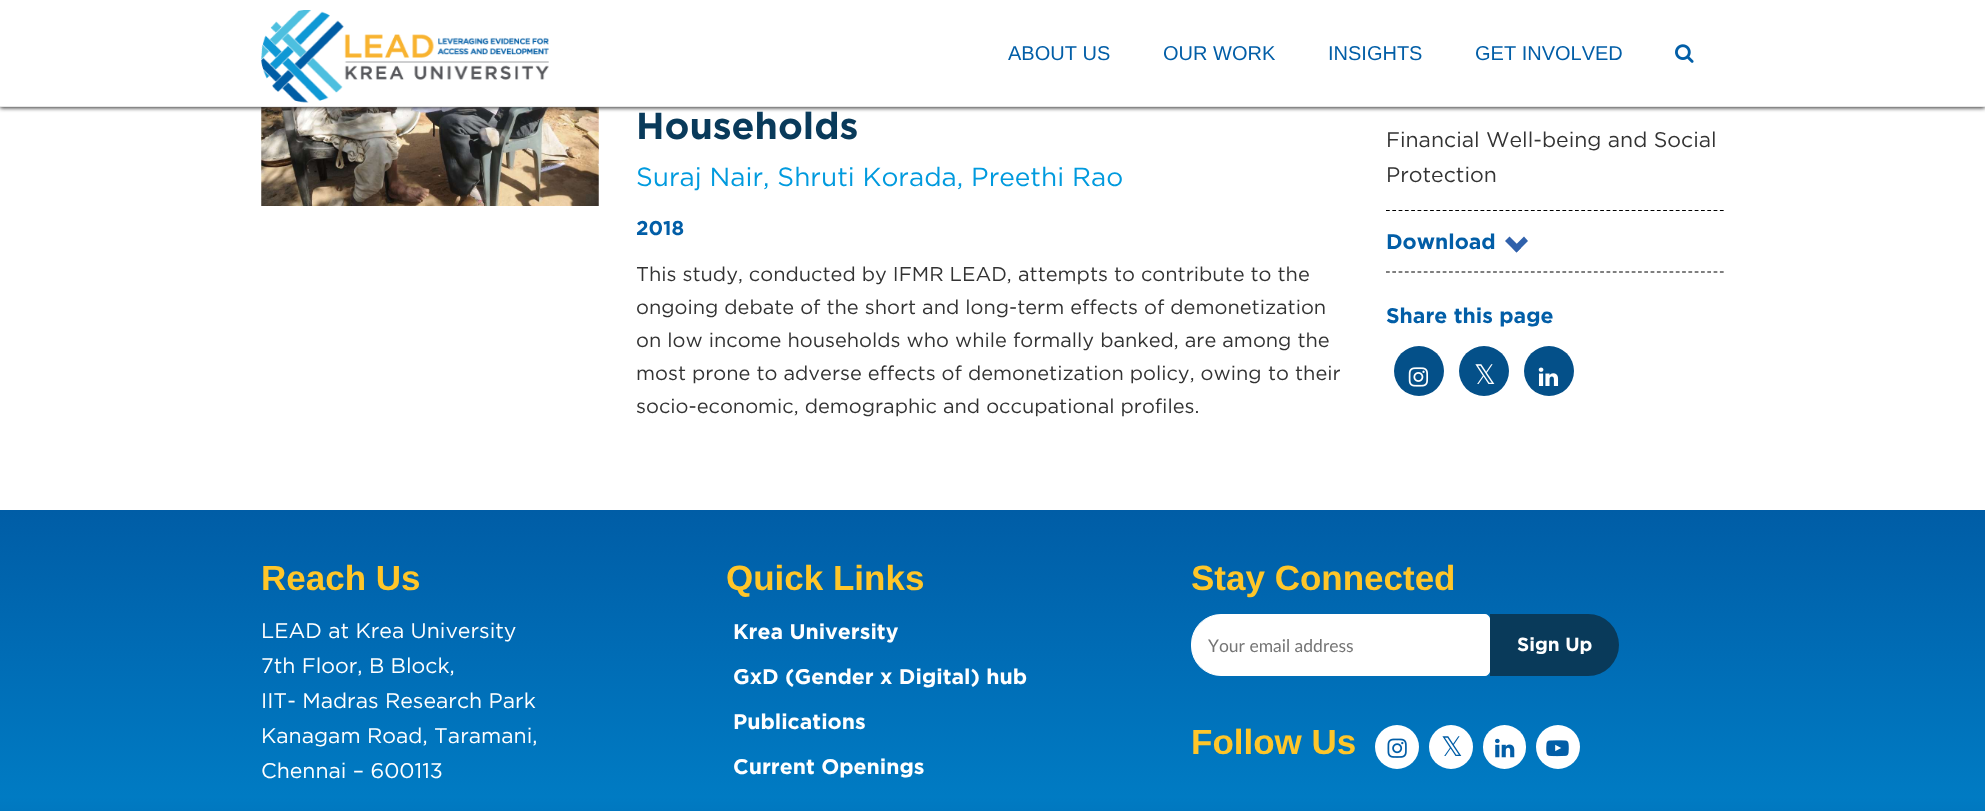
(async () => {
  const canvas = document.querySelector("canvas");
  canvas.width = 1985;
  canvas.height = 811;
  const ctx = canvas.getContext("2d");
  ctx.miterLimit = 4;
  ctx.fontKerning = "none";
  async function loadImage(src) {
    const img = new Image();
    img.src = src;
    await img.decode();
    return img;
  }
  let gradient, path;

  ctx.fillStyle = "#ffffff";
  ctx.fillRect(0, 0, 1985, 811);
  ctx.drawImage(await loadImage("img/3.png"), 261, 107, 338, 99);
  ctx.fillStyle = "#333333";
  ctx.filter = "blur(2px)";
  ctx.beginPath();
  ctx.rect(0, 0, 1985, 108);
  ctx.fill();
  ctx.filter = "none";
  ctx.fillStyle = "#ffffff";
  ctx.fillRect(0, 0, 1985, 106);
  ctx.fillStyle = "#e7e7e7";
  ctx.fillRect(0, 106, 1985, 1);
  ctx.drawImage(await loadImage("img/1.png"), 261, 10, 288, 93);
  ctx.drawImage(await loadImage("img/2.png"), 1675, 44, 19, 19);
  path = new Path2D("M1386 210.5H1724");
  ctx.strokeStyle = "#000000";
  ctx.lineWidth = 1.2;
  ctx.setLineDash([3.75, 2.55]);
  ctx.stroke(path);
  path = new Path2D("M1386 272H1724");
  ctx.stroke(path);
  ctx.fillStyle = "#3061ab";
  path = new Path2D("M1524 236.5L1528 241L1516.5 252.5L1512.5 248Z");
  ctx.fill(path);
  path = new Path2D("M1509.5 236.5L1521 248L1516.5 252.5L1505 241Z");
  ctx.fill(path);
  ctx.fillStyle = "#045089";
  ctx.beginPath();
  ctx.arc(1419, 371, 25, 0, Math.PI * 2);
  ctx.fill();
  ctx.drawImage(await loadImage("img/4.png"), 1408, 367, 21, 20);
  ctx.beginPath();
  ctx.arc(1484, 371, 25, 0, Math.PI * 2);
  ctx.fill();
  ctx.beginPath();
  ctx.arc(1549, 371, 25, 0, Math.PI * 2);
  ctx.fill();
  ctx.drawImage(await loadImage("img/5.png"), 1538, 367, 21, 19);
  gradient = ctx.createLinearGradient(993, 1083, 993, 510);
  gradient.addColorStop(0, "#005da6");
  gradient.addColorStop(0.25, "#005da6");
  gradient.addColorStop(0.5, "#007bc3");
  gradient.addColorStop(0.75, "#006cb5");
  gradient.addColorStop(1, "#005da6");
  ctx.fillStyle = gradient;
  ctx.fillRect(0, 510, 1985, 301);
  ctx.fillStyle = "#ffffff";
  ctx.beginPath();
  ctx.roundRect(1191.5, 614.5, 298, 61, [29.5, 4.5, 4.5, 29.5]);
  ctx.fill();
  ctx.strokeStyle = "#ffffff";
  ctx.lineWidth = 1;
  ctx.setLineDash([]);
  ctx.stroke();
  ctx.fillStyle = "#093a5a";
  ctx.beginPath();
  ctx.roundRect(1490, 614, 129, 62, [0, 31, 31, 0]);
  ctx.fill();
  ctx.fillStyle = "#ffffff";
  ctx.beginPath();
  ctx.arc(1397, 747, 22, 0, Math.PI * 2);
  ctx.fill();
  ctx.drawImage(await loadImage("img/6.png"), 1387, 738, 20, 20);
  ctx.beginPath();
  ctx.arc(1451, 747, 22, 0, Math.PI * 2);
  ctx.fill();
  ctx.beginPath();
  ctx.roundRect(1483, 725, 43, 44, 21.5);
  ctx.fill();
  ctx.drawImage(await loadImage("img/7.png"), 1495, 738, 20, 20);
  ctx.beginPath();
  ctx.arc(1558, 747, 22, 0, Math.PI * 2);
  ctx.fill();
  ctx.drawImage(await loadImage("img/8.png"), 1546, 740, 23, 17);
  ctx.font = "20px Liberation Sans";
  ctx.fillStyle = "#025ea7";
  for (const [text, x, y] of [
    ["ABOUT US", 1008, 60],
    ["OUR WORK", 1163, 60],
    ["INSIGHTS", 1328, 60],
    ["GET INVOLVED", 1475, 60],
  ]) {
    ctx.fillText(text, x, y);
  }
  ctx.font = "bold 37.5px Gotham";
  ctx.fillStyle = "#093a5a";
  ctx.fillText("Households", 636, 139);
  ctx.font = "26.25px Gotham";
  ctx.fillStyle = "#009ade";
  ctx.fillText("Suraj Nair, Shruti Korada, Preethi", 636, 186);
  ctx.fillText("Rao", 1072, 186);
  ctx.font = "bold 20px Gotham";
  ctx.fillStyle = "#025ea7";
  ctx.fillText("2018", 636, 235);
  ctx.font = "20px 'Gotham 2'";
  ctx.fillStyle = "#333333";
  for (const [text, x, y] of [
    ["This study, conducted by IFMR LEAD,", 636, 281],
    ["attempts to contribute to the", 1018, 281],
    ["ongoing debate of the short and long-term effects of demonetization", 636, 314],
    ["on low income households who while formally banked, are among the", 636, 347],
    ["most prone to adverse effects of demonetization policy, owing", 636, 380],
    ["to their", 1268, 380],
    ["socio-economic, demographic and occupational profiles.", 636, 413],
  ]) {
    ctx.fillText(text, x, y);
  }
  ctx.font = "21.25px Gotham";
  ctx.fillText("Financial Well-being and Social", 1386, 147);
  ctx.fillText("Protection", 1386, 182);
  ctx.font = "bold 21.25px Gotham";
  ctx.fillStyle = "#025ea7";
  ctx.fillText("Download", 1386, 249);
  ctx.fillText("Share this page", 1386, 323);
  ctx.font = "27px DejaVu Sans";
  ctx.fillStyle = "#ffffff";
  ctx.fillText("𝕏", 1474, 384);
  ctx.font = "bold 35px Liberation Sans";
  ctx.fillStyle = "#ffc629";
  ctx.fillText("Reach Us", 261, 590);
  ctx.font = "21.25px 'Gotham 2'";
  ctx.fillStyle = "#ffffff";
  for (const [text, x, y] of [
    ["LEAD at Krea University", 261, 638],
    ["7th Floor, B Block,", 261, 673],
    ["IIT- Madras Research Park", 261, 708],
    ["Kanagam Road, Taramani,", 261, 743],
    ["Chennai – 600113", 261, 778],
  ]) {
    ctx.fillText(text, x, y);
  }
  ctx.font = "bold 35px Liberation Sans";
  ctx.fillStyle = "#ffc629";
  ctx.fillText("Quick Links", 726, 590);
  ctx.font = "bold 21.25px Gotham";
  ctx.fillStyle = "#ffffff";
  for (const [text, x, y] of [
    ["Krea University", 733, 639],
    ["GxD (Gender x Digital) hub", 733, 684],
    ["Publications", 733, 729],
    ["Current Openings", 733, 774],
  ]) {
    ctx.fillText(text, x, y);
  }
  ctx.font = "bold 35px Liberation Sans";
  ctx.fillStyle = "#ffc629";
  ctx.fillText("Stay Connected", 1191, 590);
  ctx.font = "17.5px Lato";
  ctx.fillStyle = "#757575";
  ctx.fillText("Your email address", 1208, 652);
  ctx.font = "bold 19px Gotham";
  ctx.fillStyle = "#ffffff";
  ctx.fillText("Sign Up", 1517, 651);
  ctx.font = "bold 35px Liberation Sans";
  ctx.fillStyle = "#ffc629";
  ctx.fillText("Follow Us", 1191, 754);
  ctx.font = "27px DejaVu Sans";
  ctx.fillStyle = "#025ea7";
  ctx.fillText("𝕏", 1441, 756);
})();
